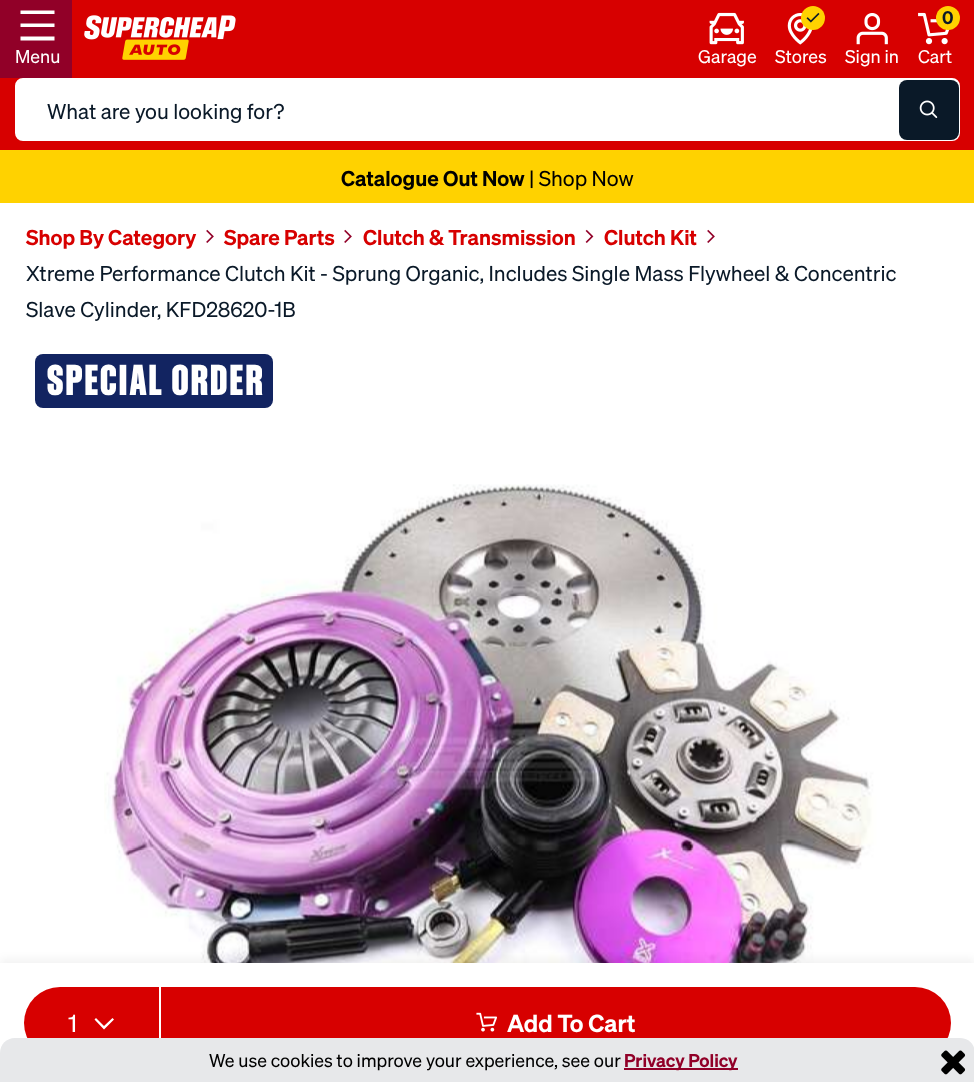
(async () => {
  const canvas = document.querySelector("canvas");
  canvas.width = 974;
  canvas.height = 1082;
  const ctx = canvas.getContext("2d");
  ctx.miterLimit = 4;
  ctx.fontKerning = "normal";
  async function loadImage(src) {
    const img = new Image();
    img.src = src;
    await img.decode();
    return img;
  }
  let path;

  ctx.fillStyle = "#ffffff";
  ctx.fillRect(0, 0, 974, 1082);
  ctx.fillStyle = "#d70000";
  ctx.fillRect(0, 0, 974, 150);
  ctx.fillStyle = "#910028";
  ctx.fillRect(0, 0, 72, 78);
  ctx.fillStyle = "#ffffff";
  path = new Path2D("M20.5 10.5H54.5V14H20.5ZM20.5 23.5H54.5V27H20.5ZM20.5 36.5H54.5V40.5H20.5Z");
  ctx.fill(path);
  ctx.drawImage(await loadImage("img/1.png"), 84, 15, 152, 45);
  ctx.drawImage(await loadImage("img/2.png"), 709, 12, 35, 33);
  ctx.drawImage(await loadImage("img/4.png"), 787, 13, 26, 32);
  ctx.fillStyle = "#ffd200";
  ctx.beginPath();
  ctx.arc(813, 18, 12, 0, Math.PI * 2);
  ctx.fill();
  ctx.drawImage(await loadImage("img/3.png"), 806, 12, 14, 11);
  ctx.drawImage(await loadImage("img/5.png"), 856, 13, 32, 32);
  ctx.drawImage(await loadImage("img/6.png"), 918, 12, 32, 33);
  ctx.beginPath();
  ctx.arc(948, 18, 12, 0, Math.PI * 2);
  ctx.fill();
  ctx.fillStyle = "#ffffff";
  ctx.beginPath();
  ctx.roundRect(16, 79, 943, 61, 7);
  ctx.fill();
  ctx.strokeStyle = "#ffffff";
  ctx.lineWidth = 2;
  ctx.stroke();
  ctx.fillStyle = "#0a1928";
  ctx.beginPath();
  ctx.roundRect(899, 80, 60, 60, 8);
  ctx.fill();
  ctx.drawImage(await loadImage("img/7.png"), 919, 100, 19, 19);
  ctx.fillStyle = "#ffd200";
  ctx.fillRect(0, 150, 974, 53);
  ctx.drawImage(await loadImage("img/8.png"), 206, 229, 8, 14);
  ctx.drawImage(await loadImage("img/8.png"), 344, 229, 8, 14);
  ctx.drawImage(await loadImage("img/9.png"), 585, 229, 9, 14);
  ctx.drawImage(await loadImage("img/8.png"), 707, 229, 8, 14);
  ctx.fillStyle = "#122461";
  ctx.beginPath();
  ctx.roundRect(35, 354, 238, 54, 8);
  ctx.fill();
  ctx.drawImage(await loadImage("img/10.png"), 104, 484, 802, 479);
  ctx.fillStyle = "rgba(0, 0, 0, 0.05)";
  ctx.filter = "blur(4.5px)";
  ctx.beginPath();
  ctx.rect(0, 959, 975, 120);
  ctx.fill();
  ctx.filter = "none";
  ctx.fillStyle = "#ffffff";
  ctx.fillRect(0, 963, 974, 90);
  ctx.fillStyle = "#d70000";
  ctx.beginPath();
  ctx.roundRect(24, 987, 135, 72, [36, 0, 0, 36]);
  ctx.fill();
  ctx.fillStyle = "#ffffff";
  path = new Path2D("M112.5 1018L114 1019.5L104 1029.5L94.5 1019.5L96 1018L104 1026Z");
  ctx.fill(path);
  ctx.fillStyle = "#d70000";
  ctx.beginPath();
  ctx.roundRect(161, 987, 790, 72, [0, 36, 36, 0]);
  ctx.fill();
  ctx.drawImage(await loadImage("img/11.png"), 476, 1012, 21, 20);
  ctx.fillStyle = "#e7e8ea";
  path = new Path2D("M15 1038H960C968.5 1038 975 1044.5 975 1053V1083H0V1053C0 1044.5 6.5 1038 15 1038Z");
  ctx.fill(path);
  ctx.fillStyle = "#910028";
  ctx.fillRect(624, 1068, 114, 2);
  ctx.drawImage(await loadImage("img/12.png"), 941, 1050, 25, 25);
  ctx.font = "18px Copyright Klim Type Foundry";
  ctx.fillStyle = "#ffffff";
  for (const [text, x, y] of [
    ["Menu", 15, 63],
    ["Garage", 698, 63],
    ["Stores", 775, 63],
    ["Sign in", 845, 63],
  ]) {
    ctx.fillText(text, x, y);
  }
  ctx.font = "600 18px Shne";
  ctx.fillStyle = "#0a1928";
  ctx.fillText("0", 942, 24);
  ctx.font = "18px Copyright Klim Type Foundry";
  ctx.fillStyle = "#ffffff";
  ctx.fillText("Cart", 918, 63);
  ctx.font = "21px Copyright Klim Type Foundry";
  ctx.fillStyle = "#0a1928";
  ctx.fillText("What are you looking for?", 47, 119);
  ctx.font = "600 21px Shne";
  ctx.fillStyle = "#000000";
  ctx.fillText("Catalogue Out Now", 341, 186);
  ctx.font = "21px Copyright Klim Type Foundry";
  ctx.fillText("| Shop Now", 529, 186);
  ctx.font = "600 21px Shne";
  ctx.fillStyle = "#d70000";
  for (const [text, x, y] of [
    ["Shop By Category", 26, 245],
    ["Spare Parts", 224, 245],
    ["Clutch & Transmission", 363, 245],
    ["Clutch Kit", 604, 245],
  ]) {
    ctx.fillText(text, x, y);
  }
  ctx.font = "21px Copyright Klim Type Foundry";
  ctx.fillStyle = "#0a1928";
  ctx.fillText("Xtreme Performance Clutch Kit - Sprung Organic, Includes Single Mass Flywheel & Concentric", 26, 281);
  ctx.fillText("Slave Cylinder, KFD28620-1B", 26, 317);
  ctx.letterSpacing = "2.1px";
  ctx.font = "800 42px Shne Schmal";
  ctx.fillStyle = "#ffffff";
  ctx.fillText("SPECIAL ORDER", 47, 395);
  ctx.letterSpacing = "0px";
  ctx.font = "24px Copyright Klim Type Foundry";
  ctx.fillText("1", 68, 1032);
  ctx.font = "600 24px Shne";
  ctx.fillText("Add To Cart", 507, 1032);
  ctx.font = "18px Copyright Klim Type Foundry";
  ctx.fillStyle = "#000000";
  ctx.fillText("We use cookies to improve your experience, see our", 209, 1067);
  ctx.font = "600 18px Shne";
  ctx.fillStyle = "#910028";
  ctx.fillText("Privacy Policy", 624, 1067);
})();
